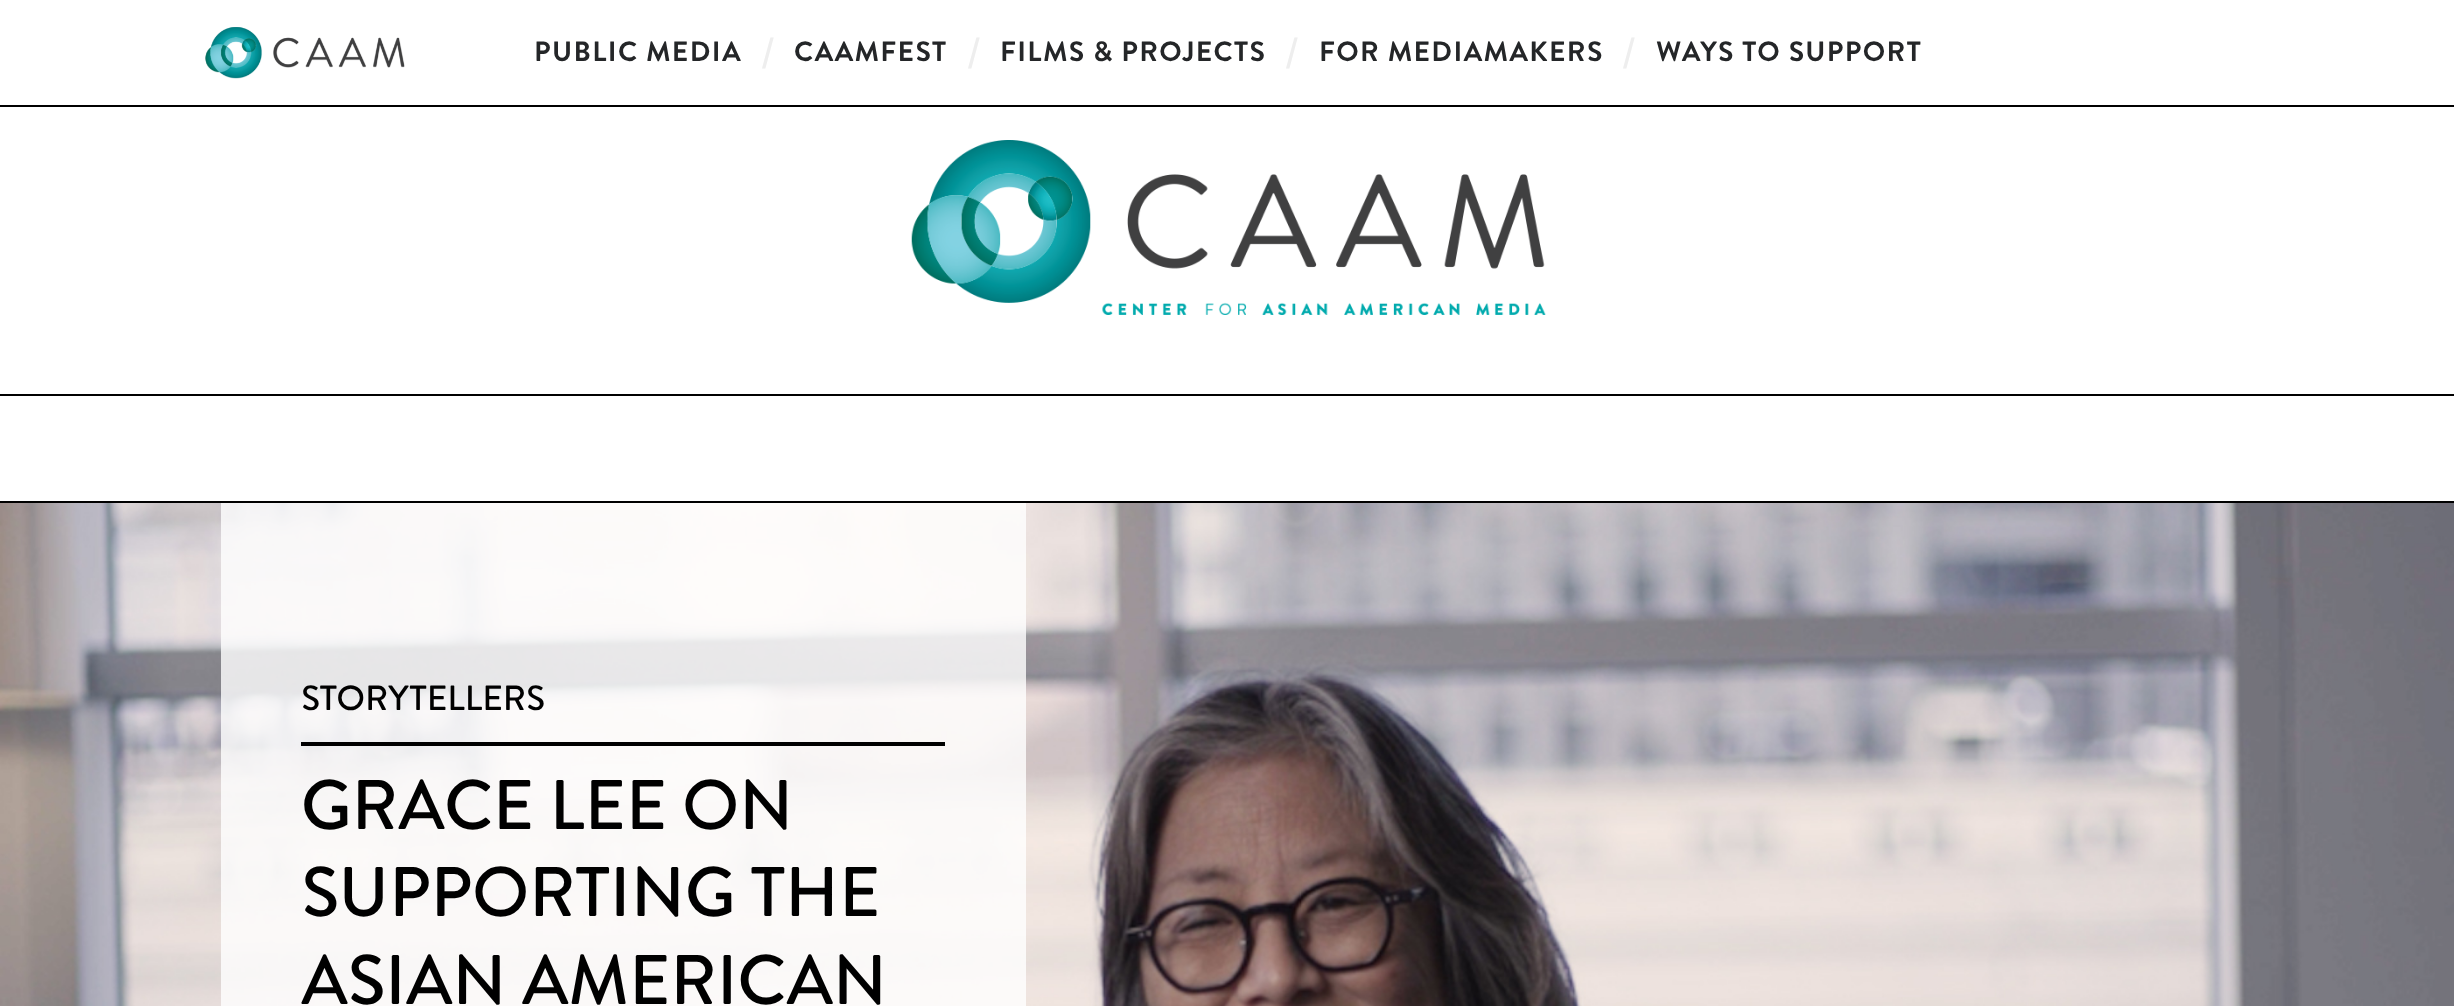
(async () => {
  const canvas = document.querySelector("canvas");
  canvas.width = 2454;
  canvas.height = 1006;
  const ctx = canvas.getContext("2d");
  ctx.miterLimit = 4;
  ctx.fontKerning = "normal";
  async function loadImage(src) {
    const img = new Image();
    img.src = src;
    await img.decode();
    return img;
  }

  ctx.fillStyle = "#ffffff";
  ctx.fillRect(0, 0, 2454, 1006);
  for (const [x, y, w, h, color] of [
    [0, 394, 2454, 2, "#000000"],
    [0, 501, 2454, 2, "#000000"],
    [0, 105, 2454, 2, "#000000"],
  ]) {
    ctx.fillStyle = color;
    ctx.fillRect(x, y, w, h);
  }
  ctx.drawImage(await loadImage("img/1.png"), 205, 27, 200, 52);
  ctx.drawImage(await loadImage("img/2.png"), 911, 140, 635, 175);
  ctx.drawImage(await loadImage("img/3.png"), 0, 503, 2454, 503);
  ctx.fillStyle = "rgba(255, 255, 255, 0.8)";
  ctx.fillRect(221, 503, 805, 503);
  ctx.fillStyle = "#000000";
  ctx.fillRect(301, 742, 644, 4);
  ctx.letterSpacing = "1.4px";
  ctx.font = "bold 28px Brandon Grotesque";
  ctx.fillStyle = "#242628";
  ctx.fillText("PUBLIC MEDIA", 534, 61);
  ctx.font = "42px Liberation Sans";
  ctx.fillStyle = "#eeeeee";
  ctx.fillText("/", 762, 68);
  ctx.font = "bold 28px Brandon Grotesque";
  ctx.fillStyle = "#242628";
  ctx.fillText("CAAMFEST", 794, 61);
  ctx.font = "42px Liberation Sans";
  ctx.fillStyle = "#eeeeee";
  ctx.fillText("/", 968, 68);
  ctx.font = "bold 28px Brandon Grotesque";
  ctx.fillStyle = "#242628";
  ctx.fillText("FILMS & PROJECTS", 1000, 61);
  ctx.font = "42px Liberation Sans";
  ctx.fillStyle = "#eeeeee";
  ctx.fillText("/", 1286, 68);
  ctx.font = "bold 28px Brandon Grotesque";
  ctx.fillStyle = "#242628";
  ctx.fillText("FOR MEDIAMAKERS", 1319, 61);
  ctx.font = "42px Liberation Sans";
  ctx.fillStyle = "#eeeeee";
  ctx.fillText("/", 1623, 68);
  ctx.font = "bold 28px Brandon Grotesque";
  ctx.fillStyle = "#242628";
  ctx.fillText("WAYS TO SUPPORT", 1656, 61);
  ctx.letterSpacing = "0px";
  ctx.font = "500 35px Brandon Grotesque";
  ctx.fillStyle = "#000000";
  ctx.fillText("STORYTELLERS", 301, 710);
  ctx.font = "500 70px Brandon Grotesque";
  for (const [text, x, y] of [
    ["GRACE LEE ON", 301, 829],
    ["SUPPORTING THE", 301, 916],
    ["ASIAN AMERICAN", 301, 1004],
  ]) {
    ctx.fillText(text, x, y);
  }
})();
